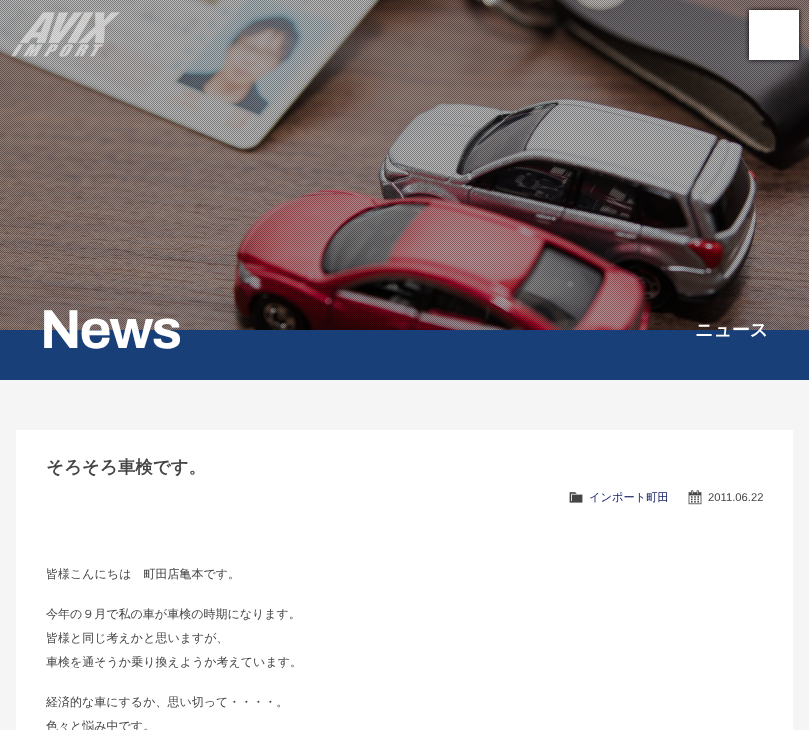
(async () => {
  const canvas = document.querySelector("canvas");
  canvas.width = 809;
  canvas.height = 730;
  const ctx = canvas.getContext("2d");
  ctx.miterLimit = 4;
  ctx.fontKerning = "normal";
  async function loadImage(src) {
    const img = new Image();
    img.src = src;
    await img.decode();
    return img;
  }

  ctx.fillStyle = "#ffffff";
  ctx.fillRect(0, 0, 809, 730);
  ctx.drawImage(await loadImage("img/2.png"), 0, 0, 809, 330);
  ctx.drawImage(await loadImage("img/3.png"), 0, 0, 809, 330);
  ctx.fillStyle = "#000000";
  ctx.filter = "blur(2.5px)";
  ctx.beginPath();
  ctx.rect(749, 10, 50, 50);
  ctx.fill();
  ctx.filter = "none";
  ctx.fillStyle = "#ffffff";
  ctx.fillRect(749, 10, 50, 50);
  ctx.drawImage(await loadImage("img/1.png"), 11, 12, 109, 45);
  for (const [x, y, w, h, color] of [
    [0, 330, 809, 50, "#183f77"],
    [0, 380, 809, 350, "#f5f5f5"],
    [16, 430, 777, 300, "#ffffff"],
  ]) {
    ctx.fillStyle = color;
    ctx.fillRect(x, y, w, h);
  }
  ctx.drawImage(await loadImage("img/4.png"), 569, 492, 14, 11);
  ctx.drawImage(await loadImage("img/5.png"), 688, 490, 14, 15);
  ctx.letterSpacing = "-2px";
  ctx.font = "bold 55px Archivo";
  ctx.fillText("News", 40, 348);
  ctx.letterSpacing = "0px";
  ctx.font = "bold 18px WenQuanYi Zen Hei";
  ctx.fillText("ニュース", 695, 336);
  ctx.font = "bold 17.5px WenQuanYi Zen Hei";
  ctx.fillStyle = "#454545";
  ctx.fillText("そろそろ車検です。", 46, 473);
  ctx.font = "500 11.25px WenQuanYi Zen Hei";
  ctx.fillStyle = "#1a2467";
  ctx.fillText("インポート町田", 589, 501);
  ctx.font = "11.25px Liberation Sans";
  ctx.fillStyle = "#454545";
  ctx.fillText("2011.06.22", 708, 501);
  ctx.font = "500 12px WenQuanYi Zen Hei";
  for (const [text, x, y] of [
    ["皆様こんにちは　町田店亀本です。", 46, 578],
    ["今年の９月で私の車が車検の時期になります。", 46, 618],
    ["皆様と同じ考えかと思いますが、", 46, 642],
    ["車検を通そうか乗り換えようか考えています。", 46, 666],
    ["経済的な車にするか、思い切って・・・・。", 46, 706],
    ["色々と悩み中です。", 46, 730],
  ]) {
    ctx.fillText(text, x, y);
  }
})();
